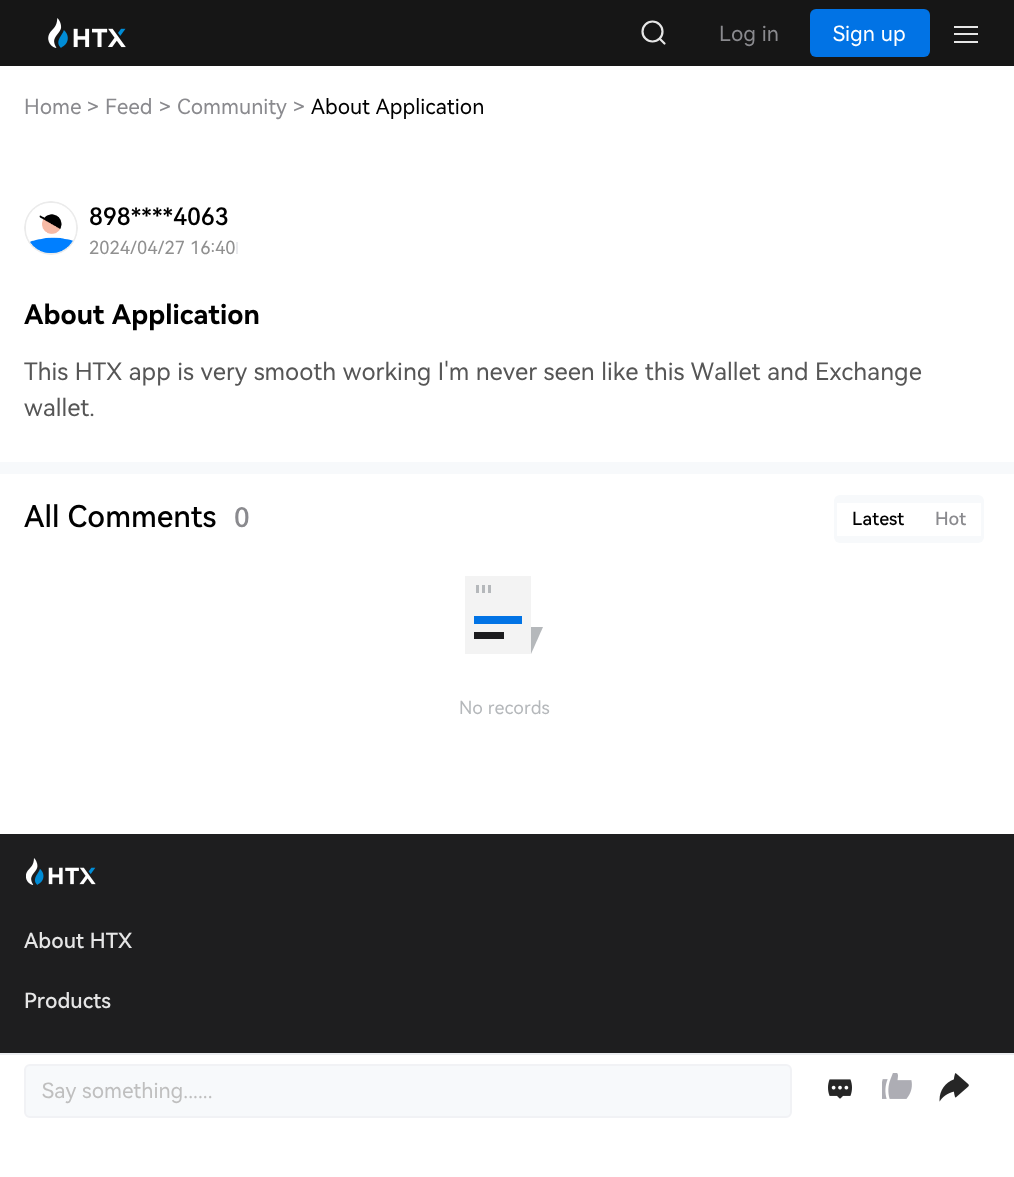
(async () => {
  const canvas = document.querySelector("canvas");
  canvas.width = 1014;
  canvas.height = 1177;
  const ctx = canvas.getContext("2d");
  ctx.miterLimit = 4;
  ctx.fontKerning = "none";
  async function loadImage(src) {
    const img = new Image();
    img.src = src;
    await img.decode();
    return img;
  }
  let path;

  ctx.fillStyle = "#ffffff";
  ctx.fillRect(0, 0, 1014, 1177);
  ctx.fillStyle = "#161616";
  ctx.fillRect(0, 0, 1014, 66);
  ctx.drawImage(await loadImage("img/1.png"), 48, 18, 78, 30);
  ctx.beginPath();
  ctx.arc(652.5, 31.5, 10, 0, Math.PI * 2);
  ctx.strokeStyle = "#e6e6e6";
  ctx.lineWidth = 2.2;
  ctx.stroke();
  path = new Path2D("M660 39L664.5 43.5");
  ctx.lineCap = "round";
  ctx.stroke(path);
  ctx.fillStyle = "#0173e5";
  ctx.beginPath();
  ctx.roundRect(810, 9, 120, 48, 6);
  ctx.fill();
  for (const [x, y, w, h, color] of [
    [954, 26, 24, 2, "#e6e6e6"],
    [954, 33, 24, 2, "#e6e6e6"],
    [954, 41, 24, 2, "#e6e6e6"],
  ]) {
    ctx.fillStyle = color;
    ctx.fillRect(x, y, w, h);
  }
  ctx.drawImage(await loadImage("img/2.png"), 24, 201, 54, 54);
  ctx.fillStyle = "#e9eaed";
  ctx.fillRect(236, 242, 2, 12);
  ctx.fillStyle = "#f7f9fb";
  ctx.fillRect(0, 462, 1014, 12);
  ctx.beginPath();
  ctx.roundRect(834, 495, 150, 48, 6);
  ctx.fill();
  ctx.fillStyle = "#ffffff";
  ctx.fillRect(837, 503, 144, 33);
  ctx.fillStyle = "#b5b8bb";
  path = new Path2D("M531 627H543L531 654Z");
  ctx.fill(path);
  for (const [x, y, w, h, color] of [
    [465, 576, 66, 78, "#f3f3f3"],
    [474, 632, 30, 7, "#1c1c1e"],
    [474, 616, 48, 8, "#0173e5"],
    [476, 585, 3, 8, "#b5b8bb"],
    [482, 585, 3, 8, "#b5b8bb"],
    [488, 585, 3, 8, "#b5b8bb"],
    [0, 1053, 1014, 2, "#ebedf0"],
  ]) {
    ctx.fillStyle = color;
    ctx.fillRect(x, y, w, h);
  }
  ctx.fillStyle = "#f7f9fb";
  ctx.beginPath();
  ctx.roundRect(25, 1065, 766, 52, 5);
  ctx.fill();
  ctx.strokeStyle = "#f1f2f5";
  ctx.lineWidth = 2;
  ctx.stroke();
  ctx.drawImage(await loadImage("img/3.png"), 828, 1079, 24, 20);
  ctx.drawImage(await loadImage("img/4.png"), 882, 1073, 30, 26);
  ctx.drawImage(await loadImage("img/5.png"), 939, 1073, 30, 29);
  ctx.fillStyle = "#1e1e1f";
  ctx.fillRect(0, 834, 1014, 219);
  ctx.drawImage(await loadImage("img/6.png"), 26, 858, 70, 27);
  ctx.font = "21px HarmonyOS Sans";
  ctx.fillStyle = "#8a8a8e";
  ctx.fillText("Log in", 719, 41);
  ctx.fillStyle = "#ffffff";
  ctx.fillText("Sign up", 833, 41);
  ctx.fillStyle = "#8a8a8e";
  for (const [text, x, y] of [
    ["Home", 24, 114],
    [">", 87, 114],
    ["Feed", 105, 114],
    [">", 159, 114],
    ["Community", 177, 114],
    [">", 293, 114],
  ]) {
    ctx.fillText(text, x, y);
  }
  ctx.fillStyle = "#000000";
  ctx.fillText("About Application", 311, 114);
  ctx.font = "500 24px HarmonyOS Sans";
  ctx.fillText("898****4063", 89, 225);
  ctx.font = "18px HarmonyOS Sans";
  ctx.fillStyle = "#909090";
  ctx.fillText("2024/04/27 16:40", 89, 254);
  ctx.font = "bold 27px HarmonyOS Sans";
  ctx.fillStyle = "#000000";
  ctx.fillText("About Application", 24, 324);
  ctx.font = "24px HarmonyOS Sans";
  ctx.fillStyle = "#565656";
  ctx.fillText("This HTX app is very smooth working I'm never seen like this Wallet and Exchange", 24, 380);
  ctx.fillText("wallet.", 24, 416);
  ctx.font = "500 30px HarmonyOS Sans";
  ctx.fillStyle = "#000000";
  ctx.fillText("All Comments", 24, 527);
  ctx.font = "500 27px HarmonyOS Sans";
  ctx.fillStyle = "#8a8a8e";
  ctx.fillText("0", 234, 527);
  ctx.font = "500 18px HarmonyOS Sans";
  ctx.fillStyle = "#000000";
  ctx.fillText("Latest", 852, 525);
  ctx.fillStyle = "#8a8a8e";
  ctx.fillText("Hot", 935, 525);
  ctx.font = "18px HarmonyOS Sans";
  ctx.fillStyle = "#b5b8bb";
  ctx.fillText("No records", 459, 714);
  ctx.font = "21px HarmonyOS Sans";
  ctx.fillStyle = "#bfbfbf";
  ctx.fillText("Say something......", 42, 1098);
  ctx.font = "500 21px HarmonyOS Sans";
  ctx.fillStyle = "#e6e6e6";
  ctx.fillText("About HTX", 24, 948);
  ctx.fillText("Products", 24, 1008);
})();
